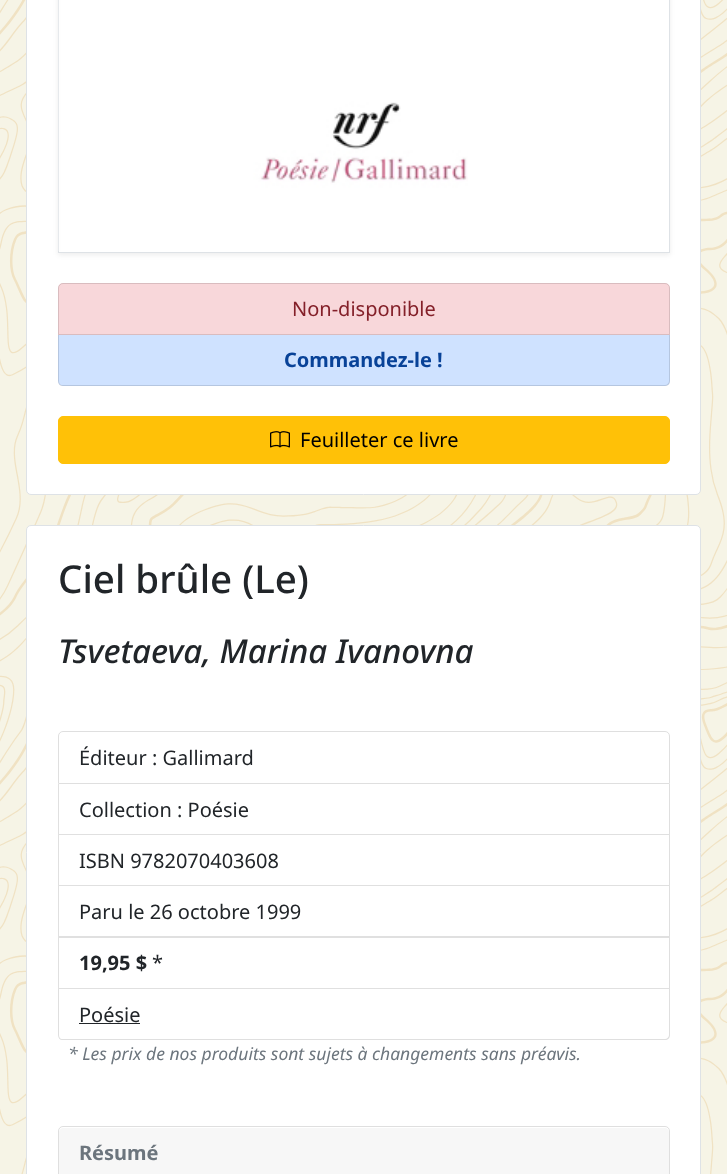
(async () => {
  const canvas = document.querySelector("canvas");
  canvas.width = 727;
  canvas.height = 1174;
  const ctx = canvas.getContext("2d");
  ctx.miterLimit = 4;
  ctx.fontKerning = "normal";
  async function loadImage(src) {
    const img = new Image();
    img.src = src;
    await img.decode();
    return img;
  }
  let path;

  ctx.fillStyle = "#f6f4e6";
  ctx.fillRect(0, 0, 727, 1174);
  ctx.drawImage(await loadImage("img/1.png"), 0, 0, 727, 1174);
  ctx.fillStyle = "#ffffff";
  ctx.beginPath();
  ctx.roundRect(26.5, -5.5, 674, 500, 4.5);
  ctx.fill();
  ctx.strokeStyle = "#dee2e6";
  ctx.stroke();
  ctx.save();
  path = new Path2D("M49 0H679V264H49ZM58-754H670V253H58Z");
  ctx.clip(path, "evenodd");
  ctx.fillStyle = "rgba(0, 0, 0, 0.07)";
  ctx.filter = "blur(2.5px)";
  ctx.beginPath();
  ctx.rect(58, -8, 612, 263);
  ctx.fill();
  ctx.filter = "none";
  ctx.restore();
  ctx.strokeRect(58.5, -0.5, 611, 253);
  ctx.drawImage(await loadImage("img/2.png"), 58, 0, 410, 251);
  ctx.fillStyle = "#f8d7da";
  ctx.beginPath();
  ctx.roundRect(58, 283, 612, 52, [5, 5, 0, 0]);
  ctx.fill();
  ctx.beginPath();
  ctx.roundRect(58.5, 283.5, 611, 51, [4.5, 4.5, 0, 0]);
  ctx.strokeStyle = "rgba(0, 0, 0, 0.12)";
  ctx.stroke();
  ctx.fillStyle = "#cfe2ff";
  ctx.beginPath();
  ctx.roundRect(58, 335, 612, 51, [0, 0, 5, 5]);
  ctx.fill();
  ctx.fillStyle = "rgba(0, 0, 0, 0.12)";
  path = new Path2D("M58 335H670V381C670 384 668 386 665 386H62C60 386 58 384 58 381ZM59 335H669V381C669 383 667 385 665 385H62C60 385 59 383 59 381Z");
  ctx.fill(path, "evenodd");
  ctx.fillStyle = "#ffc107";
  ctx.beginPath();
  ctx.roundRect(58.5, 416.5, 611, 47, 4.5);
  ctx.fill();
  ctx.strokeStyle = "#ffc107";
  ctx.stroke();
  ctx.drawImage(await loadImage("img/3.png"), 270, 431, 20, 17);
  ctx.fillStyle = "#ffffff";
  ctx.beginPath();
  ctx.roundRect(26.5, 525.5, 674, 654, 4.5);
  ctx.fill();
  ctx.strokeStyle = "#dee2e6";
  ctx.stroke();
  ctx.beginPath();
  ctx.roundRect(58.5, 731.5, 611, 52, [4.5, 4.5, 0, 0]);
  ctx.strokeStyle = "#dfdfdf";
  ctx.stroke();
  ctx.fillStyle = "#dfdfdf";
  path = new Path2D("M670 784V835L669 834V784Z");
  ctx.fill(path);
  ctx.fillStyle = "rgba(0, 0, 0, 0.12)";
  path = new Path2D("M670 835H58L59 834H669Z");
  ctx.fill(path);
  path = new Path2D("M58 835V784H59V834Z");
  ctx.fill(path);
  ctx.fillStyle = "#dfdfdf";
  path = new Path2D("M670 835V886L669 885V835Z");
  ctx.fill(path);
  ctx.fillStyle = "rgba(0, 0, 0, 0.12)";
  path = new Path2D("M670 886H58L59 885H669Z");
  ctx.fill(path);
  path = new Path2D("M58 886V835H59V885Z");
  ctx.fill(path);
  ctx.fillStyle = "#dfdfdf";
  path = new Path2D("M670 886V938L669 936V886Z");
  ctx.fill(path);
  ctx.fillStyle = "rgba(0, 0, 0, 0.12)";
  path = new Path2D("M670 938H58L59 936H669Z");
  ctx.fill(path);
  path = new Path2D("M58 938V886H59V936Z");
  ctx.fill(path);
  ctx.fillStyle = "#dfdfdf";
  path = new Path2D("M670 938V989L669 988V938Z");
  ctx.fill(path);
  ctx.fillStyle = "rgba(0, 0, 0, 0.12)";
  path = new Path2D("M670 989H58L59 988H669Z");
  ctx.fill(path);
  path = new Path2D("M58 989V938H59V988Z");
  ctx.fill(path);
  ctx.fillStyle = "#dfdfdf";
  path = new Path2D("M58 989H670V1035C670 1038 668 1040 665 1040H62C60 1040 58 1038 58 1035ZM59 989H669V1035C669 1037 667 1039 665 1039H62C60 1039 59 1037 59 1035Z");
  ctx.fill(path, "evenodd");
  ctx.fillStyle = "#212529";
  ctx.fillRect(79, 1023, 61, 1);
  ctx.beginPath();
  ctx.roundRect(58.5, 1126.5, 611, 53, 4.5);
  ctx.stroke();
  ctx.fillStyle = "#f7f7f7";
  path = new Path2D("M63 1128H665C667 1128 669 1130 669 1132V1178H59V1132C59 1130 61 1128 63 1128Z");
  ctx.fill(path);
  ctx.font = "20px Noto Sans";
  ctx.fillStyle = "#842029";
  ctx.fillText("Non-disponible", 292, 316);
  ctx.font = "bold 20px Noto Sans";
  ctx.fillStyle = "#084298";
  ctx.fillText("Commandez-le !", 284, 367);
  ctx.font = "20px Noto Sans";
  ctx.fillStyle = "#000000";
  ctx.fillText("Feuilleter ce livre", 300, 447);
  ctx.font = "500 38.5px Noto Sans";
  ctx.fillStyle = "#212529";
  ctx.fillText("Ciel brûle (Le)", 58, 593);
  ctx.font = "italic 500 33px Noto Sans";
  ctx.fillText("Tsvetaeva, Marina Ivanovna", 58, 663);
  ctx.font = "20px Noto Sans";
  for (const [text, x, y] of [
    ["Éditeur : Gallimard", 79, 765],
    ["Collection : Poésie", 79, 817],
    ["ISBN 9782070403608", 79, 868],
    ["Paru le 26 octobre 1999", 79, 919],
  ]) {
    ctx.fillText(text, x, y);
  }
  ctx.font = "bold 20px Noto Sans";
  ctx.fillText("19,95 $", 79, 970);
  ctx.font = "20px Noto Sans";
  ctx.fillText("*", 152, 970);
  ctx.fillText("Poésie", 79, 1022);
  ctx.font = "italic 17.5px Noto Sans";
  ctx.fillStyle = "#6c757d";
  ctx.fillText("* Les prix de nos produits sont sujets à changements sans préavis.", 68, 1060);
  ctx.font = "bold 20px Noto Sans";
  ctx.fillText("Résumé", 79, 1160);
})();
